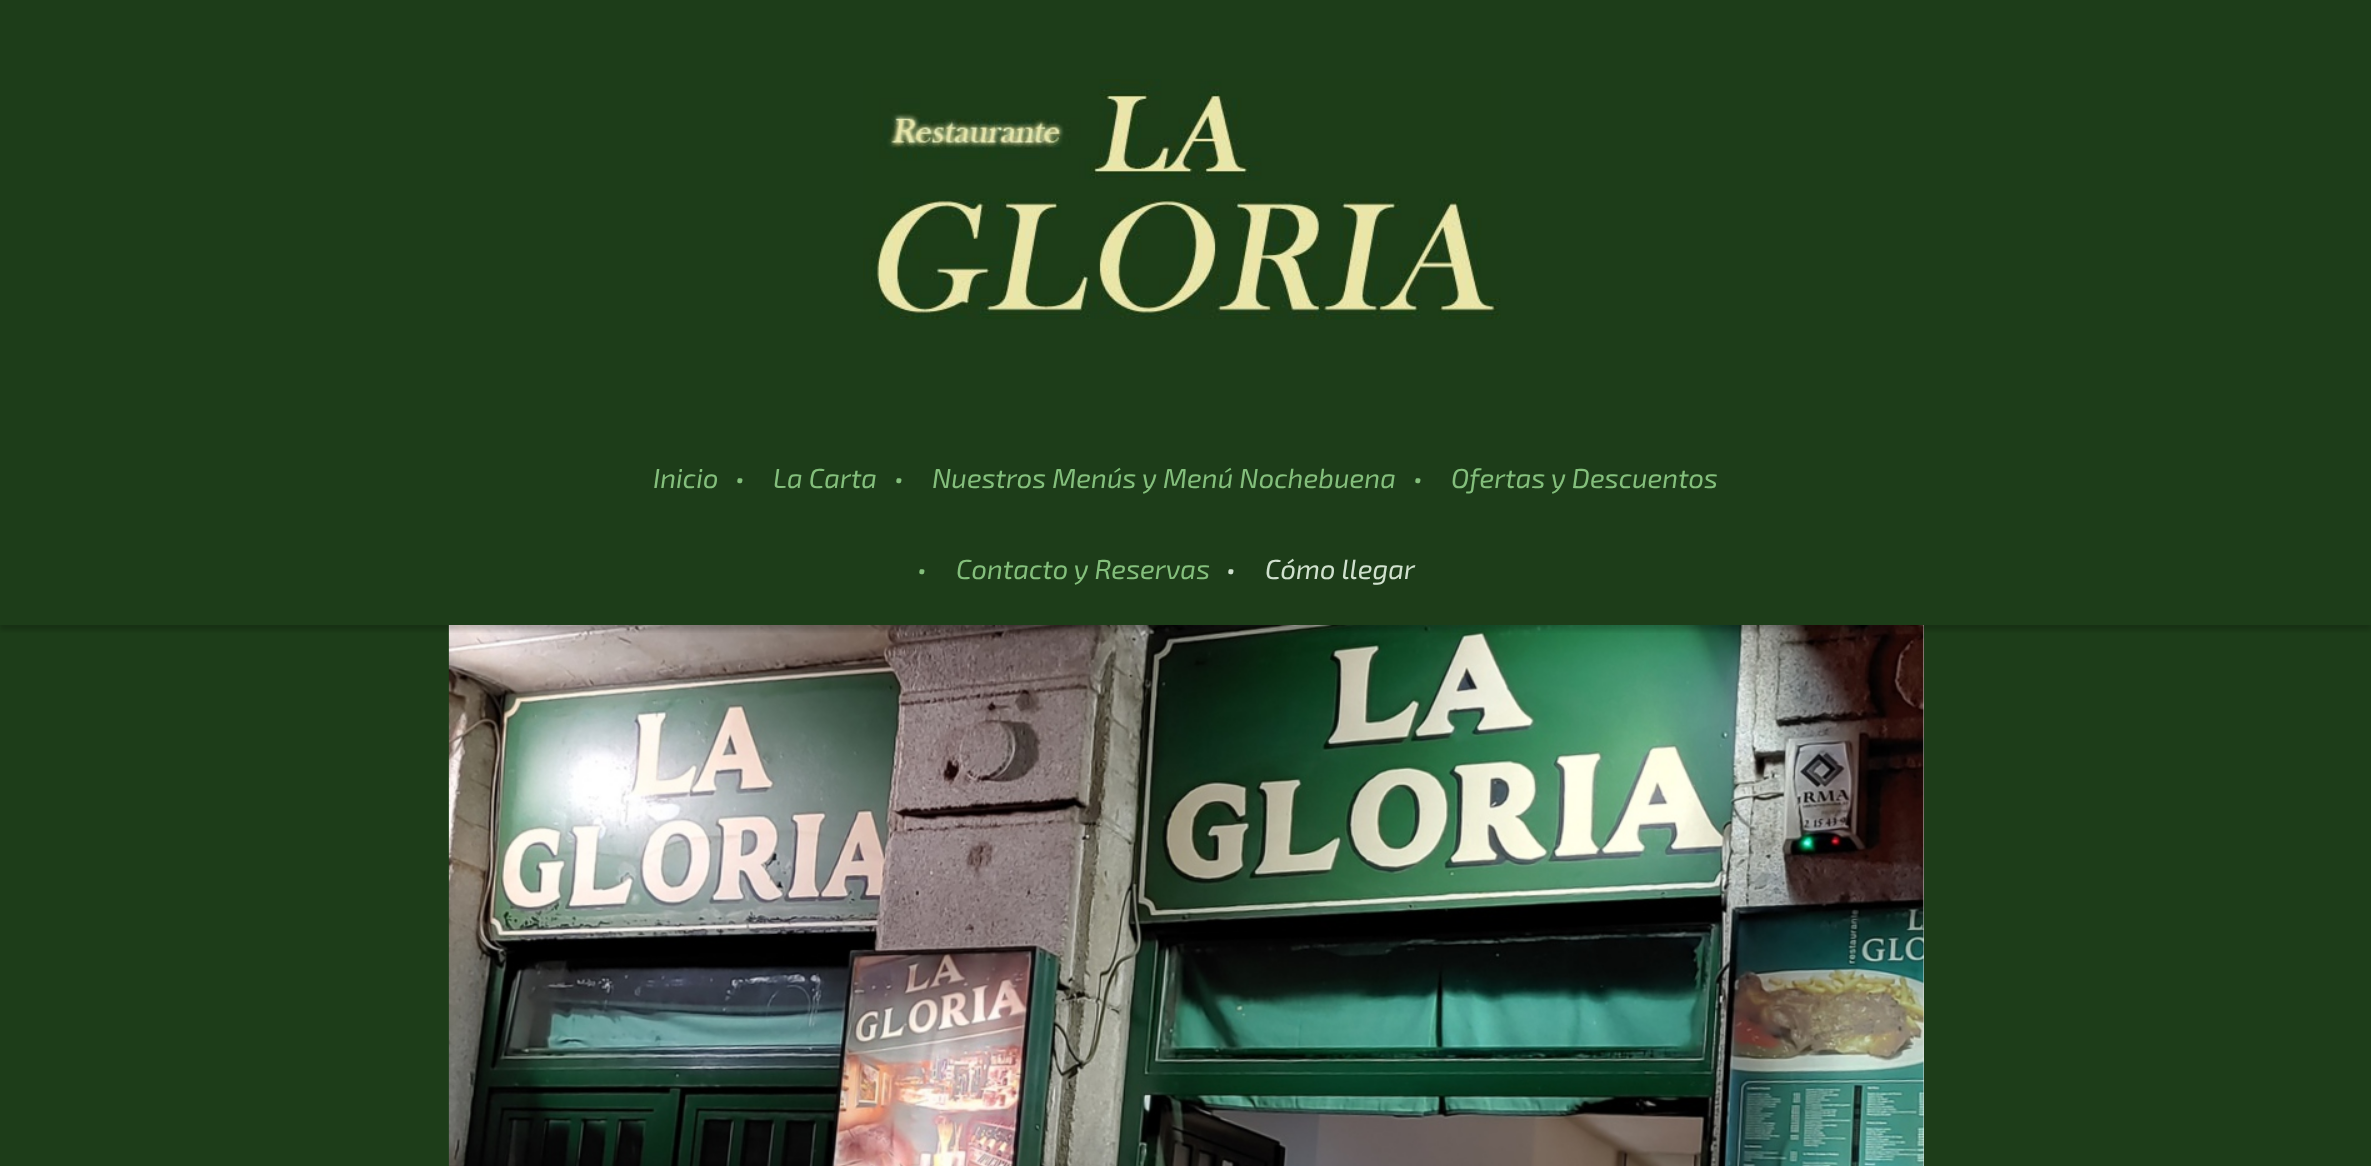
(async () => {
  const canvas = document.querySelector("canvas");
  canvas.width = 2371;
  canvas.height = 1166;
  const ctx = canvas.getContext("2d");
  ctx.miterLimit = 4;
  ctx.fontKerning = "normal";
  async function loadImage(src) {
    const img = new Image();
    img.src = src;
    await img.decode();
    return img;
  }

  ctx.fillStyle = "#1d3d19";
  ctx.fillRect(0, 0, 2371, 1166);
  ctx.drawImage(await loadImage("img/1.png"), 863, 79, 638, 241);
  ctx.drawImage(await loadImage("img/2.png"), 448, 625, 1, 541);
  ctx.fillStyle = "#eeeeee";
  ctx.fillRect(1923, 625, 1, 541);
  ctx.drawImage(await loadImage("img/3.png"), 448, 625, 1476, 541);
  ctx.save();
  ctx.beginPath();
  ctx.rect(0, 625, 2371, 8);
  ctx.clip();
  ctx.fillStyle = "rgba(0, 0, 0, 0.2)";
  ctx.filter = "blur(2.5px)";
  ctx.beginPath();
  ctx.rect(0, 430, 2371, 200);
  ctx.fill();
  ctx.filter = "none";
  ctx.restore();
  ctx.font = "italic 27.5px 'Exo 2'";
  ctx.fillStyle = "#84bf7c";
  for (const [text, x, y] of [
    ["Inicio", 653, 488],
    ["•", 735, 488],
    ["La Carta", 773, 488],
    ["•", 894, 488],
    ["Nuestros Menús y Menú Nochebuena", 932, 488],
    ["•", 1413, 488],
    ["Ofertas y Descuentos", 1451, 488],
    ["•", 917, 579],
    ["Contacto y Reservas", 956, 579],
  ]) {
    ctx.fillText(text, x, y);
  }
  ctx.fillStyle = "#d0e1ce";
  ctx.fillText("•", 1226, 579);
  ctx.fillText("Cómo llegar", 1265, 579);
})();
